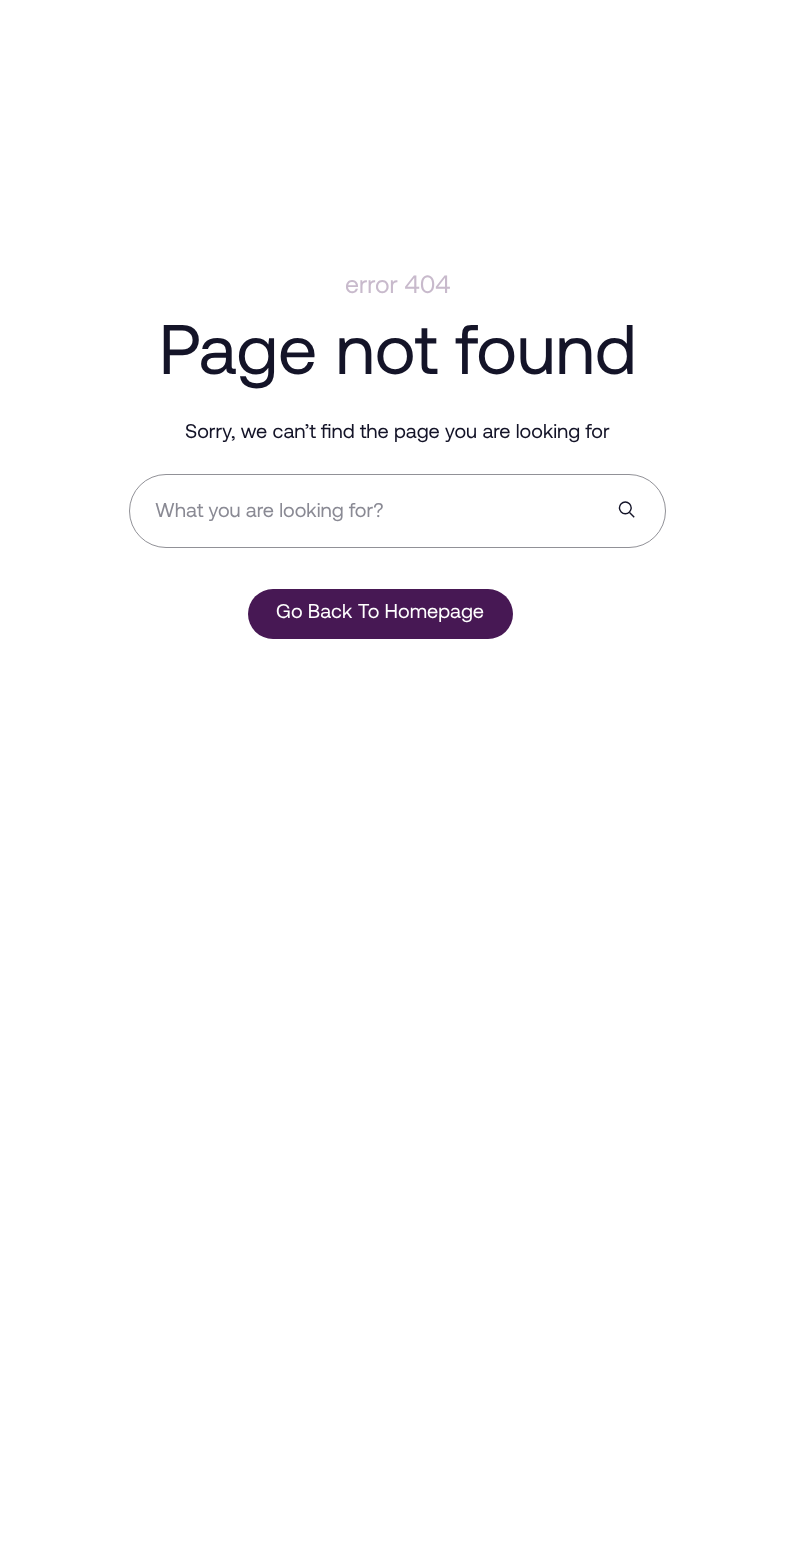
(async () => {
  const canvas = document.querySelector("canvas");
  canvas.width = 794;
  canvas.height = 1549;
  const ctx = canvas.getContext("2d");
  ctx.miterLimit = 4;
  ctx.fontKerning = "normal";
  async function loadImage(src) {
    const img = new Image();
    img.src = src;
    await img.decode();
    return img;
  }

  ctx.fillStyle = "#ffffff";
  ctx.fillRect(0, 0, 794, 1549);
  ctx.beginPath();
  ctx.roundRect(129.5, 474.5, 536, 73, 36.5);
  ctx.strokeStyle = "#919197";
  ctx.stroke();
  ctx.drawImage(await loadImage("img/1.png"), 618, 501, 17, 17);
  ctx.fillStyle = "#471854";
  ctx.beginPath();
  ctx.roundRect(248, 589, 265, 50, 25);
  ctx.fill();
  ctx.font = "25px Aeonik";
  ctx.fillStyle = "#c8bacc";
  ctx.fillText("error 404", 345, 293);
  ctx.font = "70px Aeonik";
  ctx.fillStyle = "#141428";
  ctx.fillText("Page not found", 159, 374);
  ctx.font = "20px Aeonik";
  ctx.fillText("Sorry, we can’t find the page you are looking for", 185, 438);
  ctx.fillStyle = "#8a8a94";
  ctx.fillText("What you are looking for?", 155, 517);
  ctx.fillStyle = "#ffffff";
  ctx.fillText("Go Back To Homepage", 276, 618);
})();
